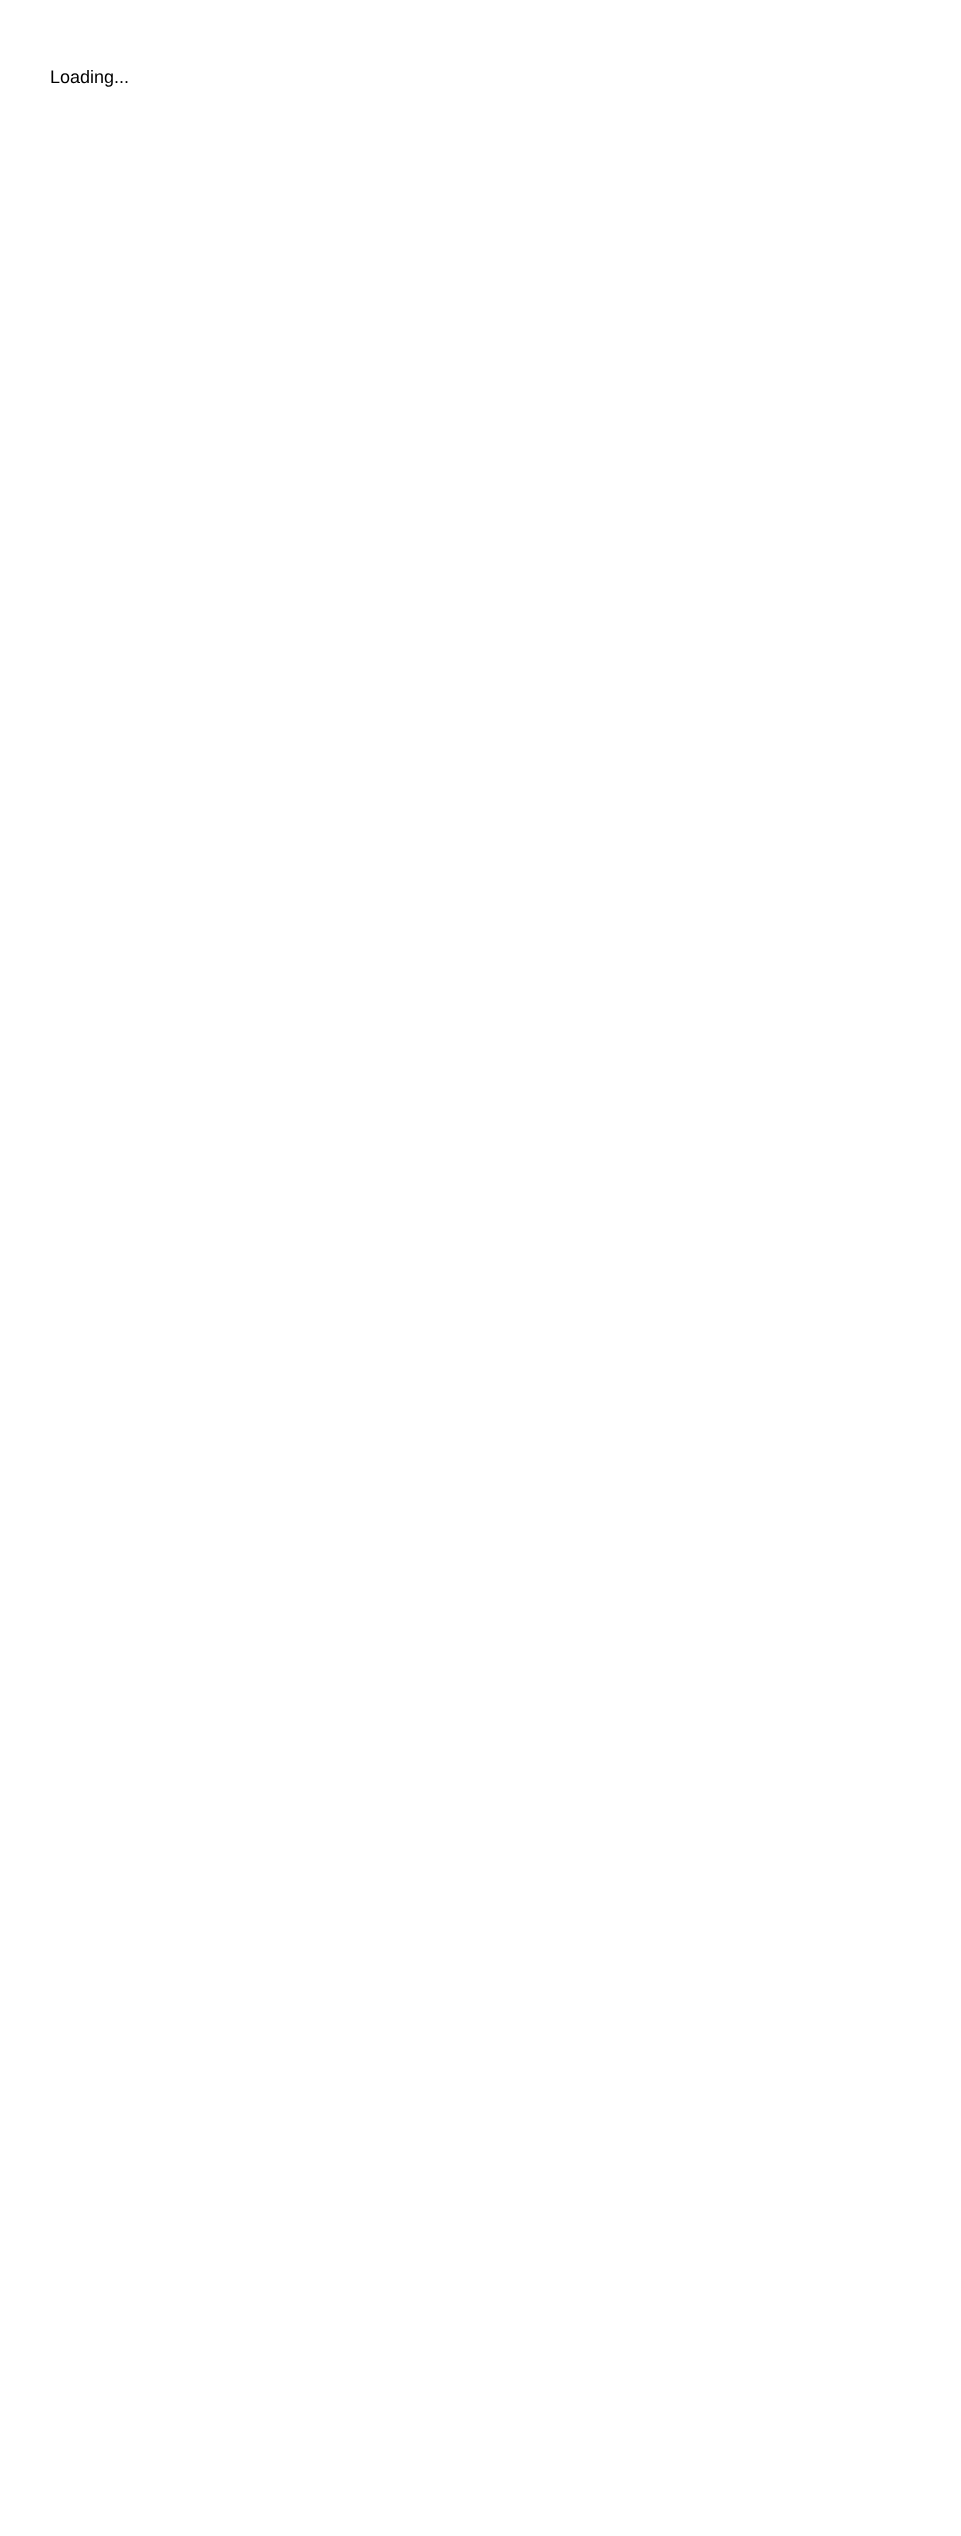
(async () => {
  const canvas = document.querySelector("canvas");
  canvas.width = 961;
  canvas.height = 2536;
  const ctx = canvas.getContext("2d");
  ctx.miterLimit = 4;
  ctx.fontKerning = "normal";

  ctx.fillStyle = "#ffffff";
  ctx.fillRect(0, 0, 961, 2536);
  ctx.font = "18px Liberation Sans";
  ctx.fillStyle = "#000000";
  ctx.fillText("Loading...", 50, 83);
})();
